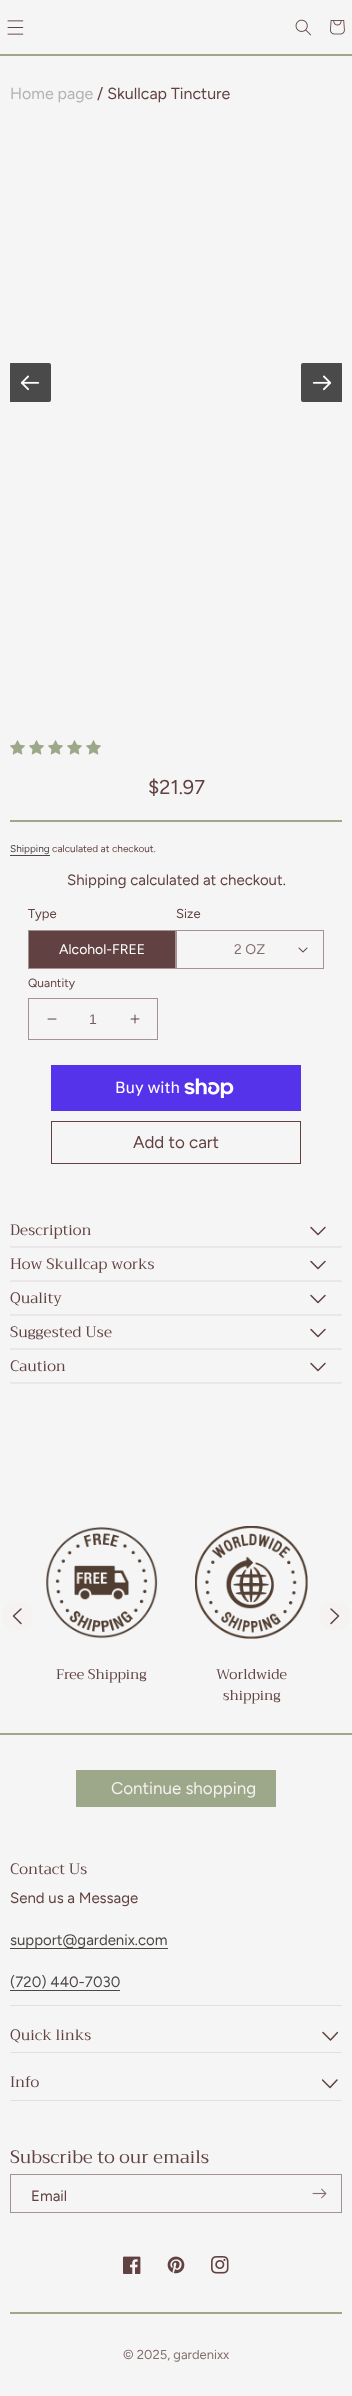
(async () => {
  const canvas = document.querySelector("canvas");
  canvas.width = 352;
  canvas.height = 2396;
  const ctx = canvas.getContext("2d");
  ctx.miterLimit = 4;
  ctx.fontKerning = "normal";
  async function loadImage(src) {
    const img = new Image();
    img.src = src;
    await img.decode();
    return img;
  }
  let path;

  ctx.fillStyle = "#f5f5f5";
  ctx.fillRect(0, 0, 352, 2396);
  ctx.fillStyle = "#9da789";
  ctx.fillRect(0, 54, 352, 2);
  ctx.drawImage(await loadImage("img/1.png"), 7, 20, 17, 15);
  ctx.drawImage(await loadImage("img/2.png"), 295, 19, 17, 17);
  ctx.drawImage(await loadImage("img/3.png"), 330, 20, 15, 15);
  ctx.save();
  ctx.beginPath();
  ctx.rect(10, 128, 332, 599);
  ctx.clip();
  ctx.fillStyle = "#4a4a4a";
  ctx.beginPath();
  ctx.roundRect(9, 363, 42, 39, 2);
  ctx.fill();
  ctx.restore();
  ctx.drawImage(await loadImage("img/4.png"), 20, 375, 20, 16);
  ctx.save();
  ctx.beginPath();
  ctx.rect(10, 128, 332, 599);
  ctx.clip();
  ctx.fillStyle = "#4a4a4a";
  ctx.beginPath();
  ctx.roundRect(301, 363, 42, 39, 2);
  ctx.fill();
  ctx.restore();
  ctx.drawImage(await loadImage("img/5.png"), 312, 375, 20, 16);
  ctx.drawImage(await loadImage("img/6.png"), 10, 740, 15, 15);
  ctx.drawImage(await loadImage("img/6.png"), 29, 740, 15, 15);
  ctx.drawImage(await loadImage("img/6.png"), 48, 740, 15, 15);
  ctx.drawImage(await loadImage("img/6.png"), 67, 740, 15, 15);
  ctx.drawImage(await loadImage("img/6.png"), 86, 740, 15, 15);
  for (const [x, y, w, h, color] of [
    [10, 820, 332, 2, "#9da789"],
    [10, 855, 40, 1, "#4e4844"],
    [29, 931, 146, 37, "#614141"],
  ]) {
    ctx.fillStyle = color;
    ctx.fillRect(x, y, w, h);
  }
  ctx.strokeStyle = "#a49292";
  ctx.strokeRect(28.5, 930.5, 147, 38);
  ctx.drawImage(await loadImage("img/7.png"), 298, 947, 10, 6);
  ctx.strokeRect(176.5, 930.5, 147, 38);
  ctx.drawImage(await loadImage("img/8.png"), 47, 1018, 10, 2);
  ctx.drawImage(await loadImage("img/9.png"), 130, 1014, 10, 10);
  ctx.strokeRect(28.5, 998.5, 129, 41);
  ctx.fillStyle = "#5433eb";
  ctx.fillRect(51, 1065, 250, 46);
  ctx.drawImage(await loadImage("img/10.png"), 184, 1078, 50, 20);
  ctx.strokeStyle = "#614141";
  ctx.strokeRect(51.5, 1121.5, 249, 42);
  ctx.fillStyle = "#e9e7e7";
  ctx.fillRect(10, 1246, 332, 2);
  path = new Path2D("M311 1227.5L318 1234.5L325 1227.5");
  ctx.lineWidth = 1.5;
  ctx.lineCap = "round";
  ctx.lineJoin = "round";
  ctx.stroke(path);
  ctx.fillRect(10, 1280, 332, 2);
  path = new Path2D("M311 1261.5L318 1268.5L325 1261.5");
  ctx.stroke(path);
  ctx.fillRect(10, 1314, 332, 2);
  path = new Path2D("M311 1295.5L318 1302.5L325 1295.5");
  ctx.stroke(path);
  ctx.fillRect(10, 1348, 332, 2);
  path = new Path2D("M311 1329.5L318 1336.5L325 1329.5");
  ctx.stroke(path);
  ctx.fillRect(10, 1382, 332, 2);
  path = new Path2D("M311 1363.5L318 1370.5L325 1363.5");
  ctx.stroke(path);
  ctx.fillStyle = "#f5f3f2";
  ctx.beginPath();
  ctx.roundRect(2, 1601, 31, 30, 15);
  ctx.fill();
  path = new Path2D("M21 1623.5L13.5 1616L21 1609");
  ctx.stroke(path);
  ctx.beginPath();
  ctx.roundRect(319, 1601, 31, 30, 15);
  ctx.fill();
  path = new Path2D("M331 1623.5L338.5 1616L331 1609");
  ctx.stroke(path);
  ctx.drawImage(await loadImage("img/11.png"), 46, 1527, 112, 112);
  ctx.drawImage(await loadImage("img/12.png"), 195, 1526, 113, 113);
  for (const [x, y, w, h, color] of [
    [0, 1733, 352, 2, "#9da789"],
    [76, 1770, 200, 37, "#9da789"],
    [10, 2005, 332, 1, "#e0e0e0"],
    [10, 1948, 158, 1, "#4e4844"],
    [10, 1990, 110, 1, "#4e4844"],
    [10, 2052, 332, 1, "#e0e0e0"],
  ]) {
    ctx.fillStyle = color;
    ctx.fillRect(x, y, w, h);
  }
  ctx.save();
  path = new Path2D("M322 2046V2027H338V2046Z");
  ctx.clip(path);
  path = new Path2D("M337.5 2032.5L330.5 2040L323 2032.5");
  ctx.stroke(path);
  ctx.restore();
  ctx.fillRect(10, 2100, 332, 1);
  ctx.save();
  path = new Path2D("M322 2093.5V2074.5H338V2093.5Z");
  ctx.clip(path);
  path = new Path2D("M337 2080L330 2087.5L322.5 2080");
  ctx.stroke(path);
  ctx.restore();
  ctx.strokeStyle = "#a49292";
  ctx.lineWidth = 1;
  ctx.lineJoin = "miter";
  ctx.strokeRect(10.5, 2174.5, 331, 38);
  ctx.drawImage(await loadImage("img/13.png"), 312, 2188, 15, 11);
  ctx.drawImage(await loadImage("img/14.png"), 123, 2256, 18, 18);
  ctx.drawImage(await loadImage("img/15.png"), 167, 2256, 18, 18);
  ctx.drawImage(await loadImage("img/16.png"), 211, 2256, 18, 18);
  ctx.fillStyle = "#9da789";
  ctx.fillRect(10, 2312, 332, 2);
  ctx.font = "16px Figtree";
  ctx.fillStyle = "#b2b2b2";
  ctx.fillText("Home page", 10, 99);
  ctx.fillStyle = "#614141";
  ctx.fillText("/ Skullcap Tincture", 97, 99);
  ctx.font = "20px Figtree";
  ctx.fillText("$21.97", 148, 794);
  ctx.font = "10px Figtree";
  ctx.fillStyle = "#4d4744";
  ctx.fillText("Shipping", 10, 852);
  ctx.fillStyle = "#614141";
  ctx.fillText("calculated at checkout.", 52, 852);
  ctx.font = "15px Figtree";
  ctx.fillText("Shipping calculated at checkout.", 67, 885);
  ctx.font = "13px Figtree";
  ctx.fillText("Type", 28, 918);
  ctx.font = "14px Figtree";
  ctx.fillStyle = "#ffffff";
  ctx.fillText("Alcohol-FREE", 59, 954);
  ctx.font = "13px Figtree";
  ctx.fillStyle = "#614141";
  ctx.fillText("Size", 176, 918);
  ctx.font = "14px Figtree";
  ctx.fillStyle = "#866e6e";
  ctx.fillText("2 OZ", 234, 954);
  ctx.font = "12px Figtree";
  ctx.fillStyle = "#614141";
  ctx.fillText("Quantity", 28, 987);
  ctx.font = "14px Liberation Sans";
  ctx.fillStyle = "#775c5c";
  ctx.fillText("1", 89, 1024);
  ctx.font = "16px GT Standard";
  ctx.fillStyle = "#ffffff";
  ctx.fillText("Buy with", 115, 1093);
  ctx.font = "17px Figtree";
  ctx.fillStyle = "#614141";
  ctx.fillText("Add to cart", 133, 1148);
  ctx.font = "15px Trirong";
  for (const [text, x, y] of [
    ["Description", 10, 1235],
    ["How Skullcap works", 10, 1269],
    ["Quality", 10, 1303],
    ["Suggested Use", 10, 1337],
    ["Caution", 10, 1371],
  ]) {
    ctx.fillText(text, x, y);
  }
  ctx.font = "14px Trirong";
  for (const [text, x, y] of [
    ["Free Shipping", 56, 1679],
    ["Worldwide", 216, 1679],
    ["shipping", 223, 1700],
  ]) {
    ctx.fillText(text, x, y);
  }
  ctx.font = "17px Figtree";
  ctx.fillStyle = "#f4f1ef";
  ctx.fillText("Continue shopping", 111, 1794);
  ctx.font = "15px Trirong";
  ctx.fillStyle = "#614141";
  ctx.fillText("Contact Us", 10, 1874);
  ctx.font = "15px Figtree";
  ctx.fillText("Send us a Message", 10, 1903);
  ctx.fillStyle = "#4d4744";
  ctx.fillText("support@gardenix.com", 10, 1945);
  ctx.fillText("(720) 440-7030", 10, 1987);
  ctx.font = "15px Trirong";
  ctx.fillStyle = "#614141";
  ctx.fillText("Quick links", 10, 2040);
  ctx.fillText("Info", 10, 2087);
  ctx.font = "18px Trirong";
  ctx.fillText("Subscribe to our emails", 10, 2163);
  ctx.font = "15px Figtree";
  ctx.fillText("Email", 31, 2201);
  ctx.font = "13px Figtree";
  ctx.fillStyle = "#866e6e";
  ctx.fillText("© 2025, gardenixx", 123, 2359);
})();
